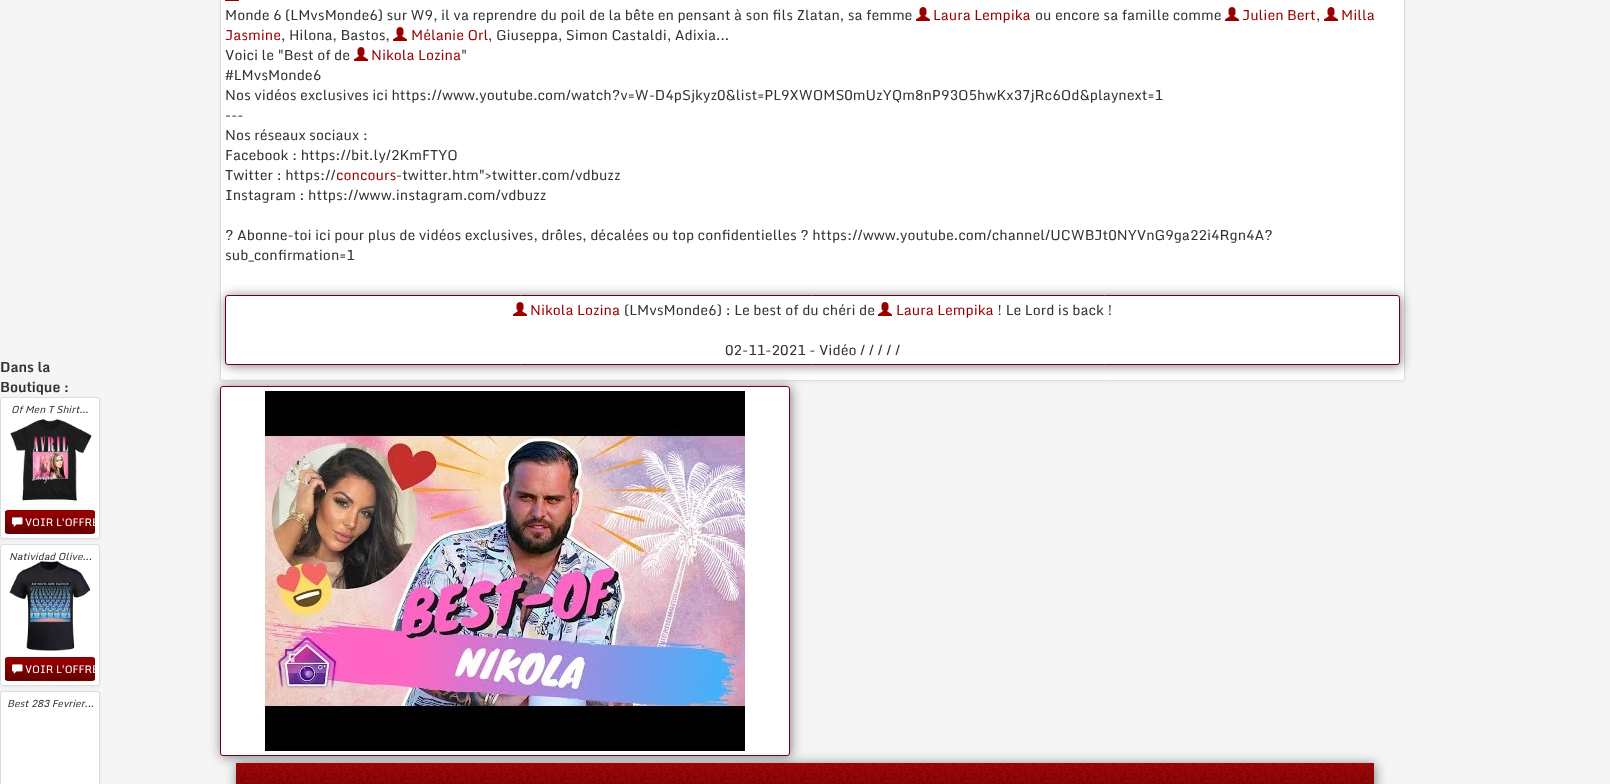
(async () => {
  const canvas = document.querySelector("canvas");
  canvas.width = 1610;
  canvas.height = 784;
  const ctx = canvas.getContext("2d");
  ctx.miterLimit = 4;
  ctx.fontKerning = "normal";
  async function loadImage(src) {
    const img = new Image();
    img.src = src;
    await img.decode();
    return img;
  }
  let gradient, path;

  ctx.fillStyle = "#f5f5f5";
  ctx.fillRect(0, 0, 1610, 784);
  ctx.fillStyle = "rgba(0, 0, 0, 0.06)";
  ctx.filter = "blur(1.5px)";
  ctx.beginPath();
  ctx.roundRect(220, -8, 1185, 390, 3);
  ctx.fill();
  ctx.filter = "none";
  ctx.fillStyle = "#ffffff";
  ctx.beginPath();
  ctx.roundRect(220.5, -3.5, 1184, 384, 2.5);
  ctx.fill();
  ctx.strokeStyle = "#dddddd";
  ctx.stroke();
  ctx.drawImage(await loadImage("img/1.png"), 225, 0, 14, 1);
  ctx.drawImage(await loadImage("img/2.png"), 1324, 7, 14, 14);
  ctx.drawImage(await loadImage("img/2.png"), 916, 7, 14, 14);
  ctx.drawImage(await loadImage("img/2.png"), 1225, 7, 14, 14);
  ctx.drawImage(await loadImage("img/2.png"), 393, 27, 14, 14);
  ctx.drawImage(await loadImage("img/2.png"), 354, 47, 14, 14);
  ctx.fillStyle = "#808080";
  ctx.filter = "blur(6px)";
  ctx.beginPath();
  ctx.roundRect(226, 296, 1175, 70, 3);
  ctx.fill();
  ctx.filter = "none";
  ctx.fillStyle = "#ffffff";
  ctx.beginPath();
  ctx.roundRect(225.5, 295.5, 1174, 69, 2.5);
  ctx.fill();
  ctx.strokeStyle = "#6d0019";
  ctx.stroke();
  ctx.drawImage(await loadImage("img/2.png"), 513, 302, 14, 14);
  ctx.drawImage(await loadImage("img/2.png"), 878, 302, 14, 14);
  ctx.fillStyle = "rgba(0, 0, 0, 0.06)";
  ctx.filter = "blur(1.5px)";
  ctx.beginPath();
  ctx.roundRect(0, 398, 100, 142, 3);
  ctx.fill();
  ctx.filter = "none";
  ctx.fillStyle = "#ffffff";
  ctx.beginPath();
  ctx.roundRect(0.5, 397.5, 99, 141, 2.5);
  ctx.fill();
  ctx.strokeStyle = "#dddddd";
  ctx.stroke();
  ctx.drawImage(await loadImage("img/3.png"), 10, 418, 82, 83);
  ctx.fillStyle = "#980000";
  ctx.beginPath();
  ctx.roundRect(5, 510, 90, 24, 3);
  ctx.fill();
  ctx.save();
  ctx.beginPath();
  ctx.roundRect(5, 510, 90, 24, 3);
  ctx.clip();
  gradient = ctx.createLinearGradient(50, 511, 50, 533);
  gradient.addColorStop(0, "#980000");
  gradient.addColorStop(1, "#650000");
  ctx.fillStyle = gradient;
  ctx.fillRect(5, 511, 90, 22);
  ctx.restore();
  path = new Path2D("M94 533H93.5C91.5 534.5 29.5 533.5 22 533.5H8L6 533");
  ctx.strokeStyle = "rgba(0, 0, 0, 0.25)";
  ctx.stroke(path);
  path = new Path2D("M6 533C4.5 531 5.5 524 5.5 522C5.5 507 4 510.5 22 510.5H78C96 510.5 94.5 507 94.5 522C94.5 524 95.5 531 94 533");
  ctx.strokeStyle = "rgba(0, 0, 0, 0.1)";
  ctx.stroke(path);
  ctx.drawImage(await loadImage("img/4.png"), 12, 517, 11, 10);
  ctx.fillStyle = "rgba(0, 0, 0, 0.06)";
  ctx.filter = "blur(1.5px)";
  ctx.beginPath();
  ctx.roundRect(0, 545, 100, 142, 3);
  ctx.fill();
  ctx.filter = "none";
  ctx.fillStyle = "#ffffff";
  ctx.beginPath();
  ctx.roundRect(0.5, 544.5, 99, 141, 2.5);
  ctx.fill();
  ctx.strokeStyle = "#dddddd";
  ctx.stroke();
  ctx.drawImage(await loadImage("img/5.png"), 9, 561, 82, 90);
  ctx.fillStyle = "#980000";
  ctx.beginPath();
  ctx.roundRect(5, 657, 90, 24, 3);
  ctx.fill();
  ctx.save();
  ctx.beginPath();
  ctx.roundRect(5, 657, 90, 24, 3);
  ctx.clip();
  gradient = ctx.createLinearGradient(50, 658, 50, 680);
  gradient.addColorStop(0, "#980000");
  gradient.addColorStop(1, "#650000");
  ctx.fillStyle = gradient;
  ctx.fillRect(5, 658, 90, 22);
  ctx.restore();
  path = new Path2D("M94 680H93.5C91.5 681.5 29.5 680.5 22 680.5H8L6 680");
  ctx.strokeStyle = "rgba(0, 0, 0, 0.25)";
  ctx.stroke(path);
  path = new Path2D("M6 680C4.5 678 5.5 671 5.5 669C5.5 654 4 657.5 22 657.5H78C96 657.5 94.5 654 94.5 669C94.5 671 95.5 678 94 680");
  ctx.strokeStyle = "rgba(0, 0, 0, 0.1)";
  ctx.stroke(path);
  ctx.drawImage(await loadImage("img/4.png"), 12, 664, 11, 10);
  ctx.fillStyle = "rgba(0, 0, 0, 0.06)";
  ctx.filter = "blur(1.5px)";
  ctx.beginPath();
  ctx.roundRect(0, 692, 100, 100, 3);
  ctx.fill();
  ctx.filter = "none";
  ctx.fillStyle = "#ffffff";
  ctx.beginPath();
  ctx.roundRect(0.5, 691.5, 99, 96, 2.5);
  ctx.fill();
  ctx.strokeStyle = "#dddddd";
  ctx.stroke();
  ctx.fillStyle = "#808080";
  ctx.filter = "blur(6px)";
  ctx.beginPath();
  ctx.roundRect(221, 387, 570, 370, 3);
  ctx.fill();
  ctx.filter = "none";
  ctx.fillStyle = "#ffffff";
  ctx.beginPath();
  ctx.roundRect(220.5, 386.5, 569, 369, 2.5);
  ctx.fill();
  ctx.strokeStyle = "#6d0019";
  ctx.stroke();
  ctx.drawImage(await loadImage("img/6.png"), 265, 391, 480, 360);
  gradient = ctx.createLinearGradient(805, 763, 805, 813);
  gradient.addColorStop(0, "#980000");
  gradient.addColorStop(1, "#650000");
  ctx.fillStyle = gradient;
  ctx.fillRect(236, 763, 1138, 21);
  ctx.save();
  path = new Path2D("M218 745H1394V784H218ZM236 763H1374V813H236Z");
  ctx.clip(path, "evenodd");
  ctx.fillStyle = "#808080";
  ctx.filter = "blur(6px)";
  ctx.beginPath();
  ctx.rect(237, 764, 1138, 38);
  ctx.fill();
  ctx.filter = "none";
  ctx.restore();
  ctx.drawImage(await loadImage("img/7.png"), 236, 763, 1138, 21);
  ctx.font = "14px Monda";
  ctx.fillStyle = "#980000";
  ctx.fillText("Milla", 1341, 20);
  ctx.fillText("Jasmine", 225, 40);
  ctx.fillStyle = "#333333";
  ctx.fillText("Monde 6 (LMvsMonde6) sur W9, il va reprendre du poil de la bête en pensant à son fils Zlatan, sa femme", 225, 20);
  ctx.fillStyle = "#980000";
  ctx.fillText("Laura Lempika", 933, 20);
  ctx.fillStyle = "#333333";
  ctx.fillText("ou encore sa famille comme", 1035, 20);
  ctx.fillStyle = "#980000";
  ctx.fillText("Julien Bert", 1242, 20);
  ctx.fillStyle = "#333333";
  ctx.fillText(",", 1316, 20);
  ctx.fillText(", Hilona, Bastos,", 281, 40);
  ctx.fillStyle = "#980000";
  ctx.fillText("Mélanie Orl", 411, 40);
  ctx.fillStyle = "#333333";
  ctx.fillText(", Giuseppa, Simon Castaldi, Adixia...", 488, 40);
  ctx.fillText("Voici le \"Best of de", 225, 60);
  ctx.fillStyle = "#980000";
  ctx.fillText("Nikola Lozina", 371, 60);
  ctx.fillStyle = "#333333";
  for (const [text, x, y] of [
    ["\"", 461, 60],
    ["#LMvsMonde6", 225, 80],
    ["Nos vidéos exclusives ici https://www.youtube.com/watch?v=W-D4pSjkyz0&list=PL9XWOMS0mUzYQm8nP93O5hwKx37jRc6Od&playnext=1", 225, 100],
    ["---", 225, 120],
    ["Nos réseaux sociaux :", 225, 140],
    ["Facebook : https://bit.ly/2KmFTYO", 225, 160],
    ["Twitter : https://", 225, 180],
  ]) {
    ctx.fillText(text, x, y);
  }
  ctx.fillStyle = "#980000";
  ctx.fillText("concours", 336, 180);
  ctx.fillStyle = "#333333";
  for (const [text, x, y] of [
    ["-twitter.htm\">twitter.com/vdbuzz", 396, 180],
    ["Instagram : https://www.instagram.com/vdbuzz", 225, 200],
    ["? Abonne-toi ici pour plus de vidéos exclusives, drôles, décalées ou top confidentielles ? https://www.youtube.com/channel/UCWBJt0NYVnG9ga22i4Rgn4A?", 225, 240],
    ["sub_confirmation=1", 225, 260],
  ]) {
    ctx.fillText(text, x, y);
  }
  ctx.fillStyle = "#980000";
  ctx.fillText("Nikola Lozina", 530, 315);
  ctx.fillStyle = "#333333";
  ctx.fillText("(LMvsMonde6) : Le best of du chéri de", 624, 315);
  ctx.fillStyle = "#980000";
  ctx.fillText("Laura Lempika", 896, 315);
  ctx.fillStyle = "#333333";
  ctx.fillText("! Le Lord is back !", 997, 315);
  ctx.fillText("02-11-2021 - Vidéo / / / / /", 725, 355);
  ctx.font = "bold 14px Monda";
  ctx.fillText("Dans la", 0, 372);
  ctx.fillText("Boutique :", 0, 392);
  ctx.font = "italic 10px Monda";
  ctx.fillText("Of Men T Shirt...", 11, 413);
  ctx.font = "10.5px Monda";
  ctx.fillStyle = "#ffffff";
  ctx.fillText("VOIR L'OFFRE", 25, 526);
  ctx.font = "italic 10px Monda";
  ctx.fillStyle = "#333333";
  ctx.fillText("Natividad Olive...", 9, 560);
  ctx.font = "10.5px Monda";
  ctx.fillStyle = "#ffffff";
  ctx.fillText("VOIR L'OFFRE", 25, 673);
  ctx.font = "italic 10px Monda";
  ctx.fillStyle = "#333333";
  ctx.fillText("Best 283 Fevrier...", 7, 707);
})();
